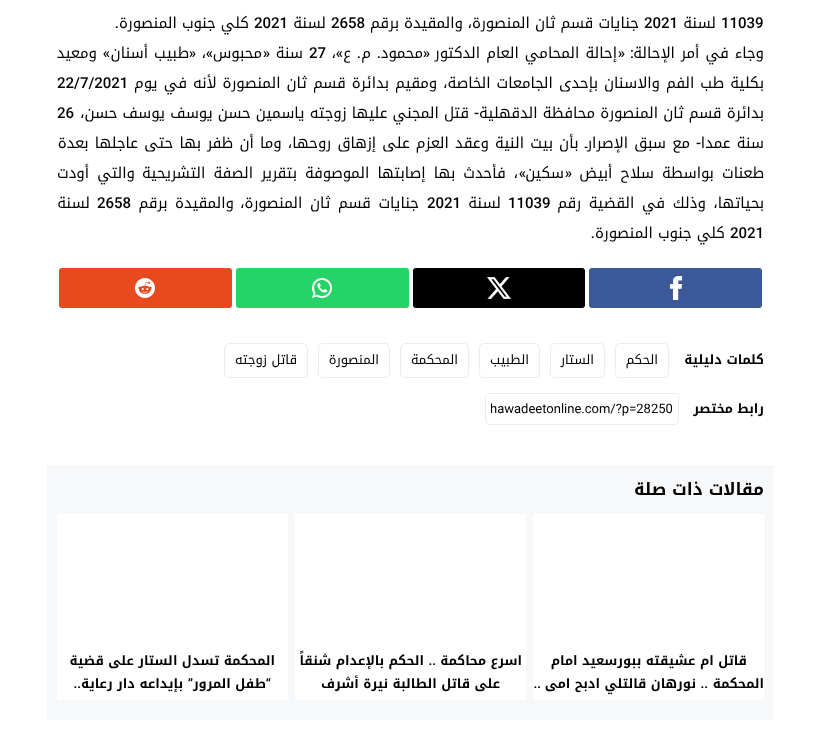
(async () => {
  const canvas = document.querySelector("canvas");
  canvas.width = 821;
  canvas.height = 750;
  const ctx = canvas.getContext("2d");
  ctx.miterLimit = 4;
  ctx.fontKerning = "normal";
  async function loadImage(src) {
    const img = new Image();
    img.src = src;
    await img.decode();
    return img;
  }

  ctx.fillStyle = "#ffffff";
  ctx.fillRect(0, 0, 821, 750);
  ctx.fillStyle = "#3b5998";
  ctx.beginPath();
  ctx.roundRect(588, 267, 175, 42, 4);
  ctx.fill();
  ctx.strokeStyle = "#ffffff";
  ctx.lineWidth = 2;
  ctx.stroke();
  ctx.drawImage(await loadImage("img/1.png"), 669, 276, 14, 24);
  ctx.fillStyle = "#000000";
  ctx.beginPath();
  ctx.roundRect(412, 267, 174, 42, 4);
  ctx.fill();
  ctx.stroke();
  ctx.drawImage(await loadImage("img/2.png"), 487, 277, 24, 22);
  ctx.fillStyle = "#25d366";
  ctx.beginPath();
  ctx.roundRect(235, 267, 175, 42, 4);
  ctx.fill();
  ctx.stroke();
  ctx.drawImage(await loadImage("img/3.png"), 312, 278, 20, 20);
  ctx.fillStyle = "#e74a1e";
  ctx.beginPath();
  ctx.roundRect(58, 267, 175, 42, 4);
  ctx.fill();
  ctx.stroke();
  ctx.drawImage(await loadImage("img/4.png"), 135, 278, 20, 20);
  ctx.beginPath();
  ctx.roundRect(615.5, 343.5, 53, 34, 4.5);
  ctx.strokeStyle = "#e9edf0";
  ctx.lineWidth = 1;
  ctx.stroke();
  ctx.beginPath();
  ctx.roundRect(550.5, 343.5, 54, 34, 4.5);
  ctx.stroke();
  ctx.beginPath();
  ctx.roundRect(479.5, 343.5, 60, 34, 4.5);
  ctx.stroke();
  ctx.beginPath();
  ctx.roundRect(400.5, 343.5, 68, 34, 4.5);
  ctx.stroke();
  ctx.beginPath();
  ctx.roundRect(318.5, 343.5, 71, 34, 4.5);
  ctx.stroke();
  ctx.beginPath();
  ctx.roundRect(224.5, 343.5, 83, 34, 4.5);
  ctx.stroke();
  ctx.beginPath();
  ctx.roundRect(485.5, 393.5, 193, 31, 4.5);
  ctx.stroke();
  for (const [x, y, w, h, color] of [
    [47, 465, 727, 255, "#f7f8f9"],
    [533, 514, 231, 186, "#ffffff"],
    [295, 514, 231, 186, "#ffffff"],
    [57, 514, 231, 186, "#ffffff"],
  ]) {
    ctx.fillStyle = color;
    ctx.fillRect(x, y, w, h);
  }
  ctx.font = "500 15px Roboto";
  ctx.fillStyle = "#000000";
  ctx.fillText("11039", 721, 28);
  ctx.direction = "rtl";
  ctx.font = "15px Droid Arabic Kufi";
  ctx.fillText("لسنة", 716, 28);
  ctx.direction = "ltr";
  ctx.font = "500 15px Roboto";
  ctx.fillText("2021", 644, 28);
  ctx.direction = "rtl";
  ctx.font = "15px Droid Arabic Kufi";
  ctx.fillText("جنايات قسم ثان المنصورة،", 639, 28);
  ctx.fillText("والمقيدة برقم", 463, 28);
  ctx.direction = "ltr";
  ctx.font = "500 15px Roboto";
  ctx.fillText("2658", 331, 28);
  ctx.direction = "rtl";
  ctx.font = "15px Droid Arabic Kufi";
  ctx.fillText("لسنة", 326, 28);
  ctx.direction = "ltr";
  ctx.font = "500 15px Roboto";
  ctx.fillText("2021", 254, 28);
  ctx.direction = "rtl";
  ctx.font = "15px Droid Arabic Kufi";
  ctx.fillText("كلي جنوب المنصورة", 249, 28);
  ctx.font = "500 15px Roboto";
  ctx.fillText(".", 119, 28);
  ctx.wordSpacing = "1px";
  ctx.font = "15px Droid Arabic Kufi";
  ctx.fillText("وجاء في أمر الإحالة", 764, 58);
  ctx.wordSpacing = "0px";
  ctx.font = "500 15px Roboto";
  ctx.fillText(":", 634, 58);
  ctx.fillText("«", 625, 58);
  ctx.wordSpacing = "1px";
  ctx.font = "15px Droid Arabic Kufi";
  ctx.fillText("إحالة المحامي العام الدكتور", 617, 58);
  ctx.wordSpacing = "0px";
  ctx.font = "500 15px Roboto";
  ctx.fillText("«", 430, 58);
  ctx.font = "15px Droid Arabic Kufi";
  ctx.fillText("محمود", 423, 58);
  ctx.font = "500 15px Roboto";
  ctx.fillText(".", 381, 58);
  ctx.font = "15px Droid Arabic Kufi";
  ctx.fillText("م", 371, 58);
  ctx.font = "500 15px Roboto";
  ctx.fillText(".", 361, 58);
  ctx.font = "15px Droid Arabic Kufi";
  ctx.fillText("ع", 351, 58);
  ctx.font = "500 15px Roboto";
  ctx.fillText("»", 343, 58);
  ctx.font = "15px Droid Arabic Kufi";
  ctx.fillText("،", 336, 58);
  ctx.direction = "ltr";
  ctx.font = "500 15px Roboto";
  ctx.fillText("27", 309, 58);
  ctx.direction = "rtl";
  ctx.font = "15px Droid Arabic Kufi";
  ctx.fillText("سنة", 303, 58);
  ctx.font = "500 15px Roboto";
  ctx.fillText("«", 270, 58);
  ctx.font = "15px Droid Arabic Kufi";
  ctx.fillText("محبوس", 262, 58);
  ctx.font = "500 15px Roboto";
  ctx.fillText("»", 213, 58);
  ctx.font = "15px Droid Arabic Kufi";
  ctx.fillText("،", 206, 58);
  ctx.font = "500 15px Roboto";
  ctx.fillText("«", 196, 58);
  ctx.wordSpacing = "1px";
  ctx.font = "15px Droid Arabic Kufi";
  ctx.fillText("طبيب أسنان", 189, 58);
  ctx.wordSpacing = "0px";
  ctx.font = "500 15px Roboto";
  ctx.fillText("»", 110, 58);
  ctx.font = "15px Droid Arabic Kufi";
  ctx.fillText("ومعيد", 97, 58);
  ctx.wordSpacing = "0.9px";
  ctx.fillText("بكلية طب الفم", 764, 88);
  ctx.wordSpacing = "0px";
  ctx.fillText("والاسنان", 660, 88);
  ctx.wordSpacing = "0.9px";
  ctx.fillText("بإحدى الجامعات الخاصة، ومقيم بدائرة قسم ثان المنصورة لأنه في يوم", 598, 88);
  ctx.wordSpacing = "0px";
  ctx.direction = "ltr";
  ctx.font = "500 15px Roboto";
  ctx.fillText("22/7/2021", 57, 88);
  ctx.direction = "rtl";
  ctx.font = "15px Droid Arabic Kufi";
  ctx.fillText("بدائرة قسم ثان المنصورة", 764, 118);
  ctx.fillText("محافظة الدقهلية", 595, 118);
  ctx.font = "500 15px Roboto";
  ctx.fillText("-", 479, 118);
  ctx.font = "15px Droid Arabic Kufi";
  ctx.fillText("قتل المجني عليها زوجته ياسمين حسن يوسف يوسف حسن،", 469, 118);
  ctx.direction = "ltr";
  ctx.font = "500 15px Roboto";
  ctx.fillText("26", 57, 118);
  ctx.wordSpacing = "1.1px";
  ctx.direction = "rtl";
  ctx.font = "15px Droid Arabic Kufi";
  ctx.fillText("سنة عمدا", 764, 148);
  ctx.wordSpacing = "0px";
  ctx.font = "500 15px Roboto";
  ctx.fillText("-", 701, 148);
  ctx.wordSpacing = "1.1px";
  ctx.font = "15px Droid Arabic Kufi";
  ctx.fillText("مع سبق", 690, 148);
  ctx.fillText("الإصرار۔ بأن بيت النية وعقد العزم على إزهاق روحها، وما أن ظفر بها حتى عاجلها بعدة", 628, 148);
  ctx.wordSpacing = "3px";
  ctx.fillText("طعنات بواسطة سلاح أبيض", 764, 178);
  ctx.wordSpacing = "0px";
  ctx.font = "500 15px Roboto";
  ctx.fillText("«", 572, 178);
  ctx.font = "15px Droid Arabic Kufi";
  ctx.fillText("سكين", 564, 178);
  ctx.font = "500 15px Roboto";
  ctx.fillText("»", 526, 178);
  ctx.wordSpacing = "3px";
  ctx.font = "15px Droid Arabic Kufi";
  ctx.fillText("، فأحدث بها إصابتها الموصوفة بتقرير الصفة التشريحية", 518, 178);
  ctx.fillText("والتي أودت", 135, 178);
  ctx.wordSpacing = "2.5px";
  ctx.fillText("بحياتها، وذلك في القضية رقم", 764, 208);
  ctx.wordSpacing = "0px";
  ctx.direction = "ltr";
  ctx.font = "500 15px Roboto";
  ctx.fillText("11039", 508, 208);
  ctx.direction = "rtl";
  ctx.font = "15px Droid Arabic Kufi";
  ctx.fillText("لسنة", 501, 208);
  ctx.direction = "ltr";
  ctx.font = "500 15px Roboto";
  ctx.fillText("2021", 427, 208);
  ctx.wordSpacing = "2.5px";
  ctx.direction = "rtl";
  ctx.font = "15px Droid Arabic Kufi";
  ctx.fillText("جنايات قسم ثان المنصورة،", 419, 208);
  ctx.fillText("والمقيدة برقم", 234, 208);
  ctx.wordSpacing = "0px";
  ctx.direction = "ltr";
  ctx.font = "500 15px Roboto";
  ctx.fillText("2658", 97, 208);
  ctx.direction = "rtl";
  ctx.font = "15px Droid Arabic Kufi";
  ctx.fillText("لسنة", 90, 208);
  ctx.direction = "ltr";
  ctx.font = "500 15px Roboto";
  ctx.fillText("2021", 730, 238);
  ctx.direction = "rtl";
  ctx.font = "15px Droid Arabic Kufi";
  ctx.fillText("كلي جنوب المنصورة", 725, 238);
  ctx.font = "500 15px Roboto";
  ctx.fillText(".", 595, 238);
  ctx.font = "bold 13px Droid Arabic Kufi";
  ctx.fillText("كلمات دليلية", 764, 364);
  ctx.font = "13px Droid Arabic Kufi";
  for (const [text, x, y] of [
    ["الحكم", 658, 364],
    ["الستار", 594, 364],
    ["الطبيب", 529, 364],
    ["المحكمة", 458, 364],
    ["المنصورة", 379, 364],
    ["قاتل زوجته", 297, 364],
  ]) {
    ctx.fillText(text, x, y);
  }
  ctx.font = "bold 13px Droid Arabic Kufi";
  ctx.fillText("رابط مختصر", 764, 413);
  ctx.save();
  ctx.beginPath();
  ctx.rect(491, 399, 182, 20);
  ctx.clip();
  ctx.direction = "ltr";
  ctx.font = "13px Roboto";
  ctx.fillText("hawadeetonline.com/?p=28250", 490, 413);
  ctx.restore();
  ctx.font = "bold 17px Droid Arabic Kufi";
  ctx.fillText("مقالات ذات صلة", 764, 495);
  ctx.font = "bold 13px Droid Arabic Kufi";
  ctx.fillText("قاتل ام عشيقته ببورسعيد امام", 747, 665);
  ctx.fillText("المحكمة", 764, 688);
  ctx.font = "bold 13px Roboto";
  ctx.fillText("..", 708, 688);
  ctx.font = "bold 13px Droid Arabic Kufi";
  ctx.fillText("نورهان قالتلي ادبح امى", 696, 688);
  ctx.font = "bold 13px Roboto";
  ctx.fillText("..", 541, 688);
  ctx.font = "bold 13px Droid Arabic Kufi";
  ctx.fillText("اسرع محاكمة", 522, 665);
  ctx.font = "bold 13px Roboto";
  ctx.fillText("..", 436, 665);
  ctx.font = "bold 13px Droid Arabic Kufi";
  for (const [text, x, y] of [
    ["الحكم بالإعدام شنقاً", 424, 665],
    ["على قاتل الطالبة نيرة أشرف", 500, 688],
    ["المحكمة تسدل الستار على قضية", 275, 665],
  ]) {
    ctx.fillText(text, x, y);
  }
  ctx.font = "bold 13px Roboto";
  ctx.fillText("“", 271, 688);
  ctx.fillText("”", 193, 688);
  ctx.font = "bold 13px Droid Arabic Kufi";
  ctx.fillText("طفل المرور", 266, 688);
  ctx.fillText("بإيداعه دار رعاية", 183, 688);
  ctx.font = "bold 13px Roboto";
  ctx.fillText("..", 81, 688);
})();
